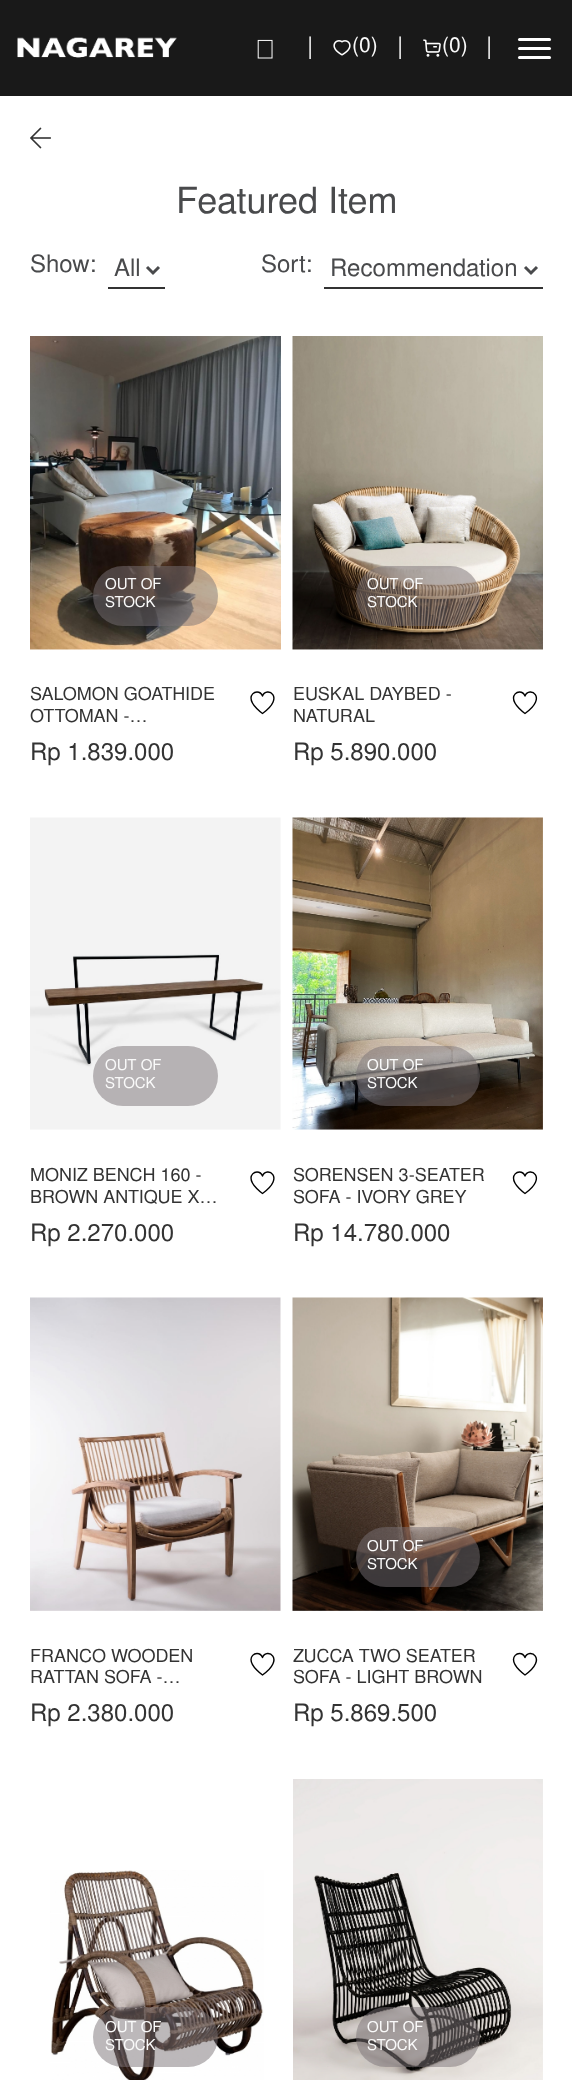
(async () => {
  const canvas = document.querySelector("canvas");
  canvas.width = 572;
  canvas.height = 2080;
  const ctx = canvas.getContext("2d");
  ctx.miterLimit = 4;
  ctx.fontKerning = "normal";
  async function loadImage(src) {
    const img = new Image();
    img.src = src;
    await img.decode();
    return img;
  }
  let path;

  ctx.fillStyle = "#ffffff";
  ctx.fillRect(0, 0, 572, 2080);
  ctx.fillStyle = "#191919";
  ctx.fillRect(0, 0, 572, 96);
  ctx.drawImage(await loadImage("img/1.png"), 17, 37, 160, 21);
  ctx.drawImage(await loadImage("img/2.png"), 257, 39, 16, 20);
  ctx.drawImage(await loadImage("img/3.png"), 333, 40, 18, 16);
  ctx.drawImage(await loadImage("img/4.png"), 423, 39, 18, 18);
  ctx.fillStyle = "#ffffff";
  ctx.beginPath();
  ctx.roundRect(518, 38, 33, 3, 1.5);
  ctx.fill();
  ctx.beginPath();
  ctx.roundRect(518, 47, 33, 3, 1.5);
  ctx.fill();
  ctx.beginPath();
  ctx.roundRect(518, 56, 33, 3, 1.5);
  ctx.fill();
  ctx.drawImage(await loadImage("img/5.png"), 30, 127, 21, 22);
  path = new Path2D("M147 267L153 273L159 267");
  ctx.strokeStyle = "#494a4c";
  ctx.lineWidth = 3;
  ctx.stroke(path);
  ctx.fillStyle = "#333333";
  ctx.fillRect(108, 287, 57, 2);
  path = new Path2D("M525 267L531 273L537 267");
  ctx.stroke(path);
  ctx.fillRect(324, 287, 219, 2);
  ctx.drawImage(await loadImage("img/6.png"), 30, 336, 251, 314);
  ctx.fillStyle = "rgba(121, 114, 118, 0.5)";
  ctx.beginPath();
  ctx.roundRect(93, 566, 125, 60, 30);
  ctx.fill();
  path = new Path2D("M257 692C259.5 692 261.5 693.5 262.5 696C266.5 685.5 286 697 262.5 713.5C262.5 713.5 251 705.5 251 698C251 695 253.5 692 257 692Z");
  ctx.strokeStyle = "#000000";
  ctx.lineWidth = 1.4;
  ctx.lineJoin = "round";
  ctx.stroke(path);
  ctx.drawImage(await loadImage("img/7.png"), 292, 336, 251, 314);
  ctx.beginPath();
  ctx.roundRect(356, 566, 124, 60, 30);
  ctx.fill();
  path = new Path2D("M519.5 692C522 692 524 693.5 525 696C529 685.5 548.5 697 525 713.5C525 713.5 513.5 705.5 513.5 698C513.5 695 516 692 519.5 692Z");
  ctx.stroke(path);
  ctx.drawImage(await loadImage("img/8.png"), 30, 817, 251, 313);
  ctx.beginPath();
  ctx.roundRect(93, 1046, 125, 60, 30);
  ctx.fill();
  path = new Path2D("M257 1172C259.5 1172 261.5 1173.5 262.5 1176C266.5 1165.5 286 1177 262.5 1193.5C262.5 1193.5 251 1185.5 251 1178C251 1175 253.5 1172 257 1172Z");
  ctx.stroke(path);
  ctx.drawImage(await loadImage("img/9.png"), 292, 817, 251, 313);
  ctx.beginPath();
  ctx.roundRect(356, 1046, 124, 60, 30);
  ctx.fill();
  path = new Path2D("M519.5 1172C522 1172 524 1173.5 525 1176C529 1165.5 548.5 1177 525 1193.5C525 1193.5 513.5 1185.5 513.5 1178C513.5 1175 516 1172 519.5 1172Z");
  ctx.stroke(path);
  ctx.drawImage(await loadImage("img/10.png"), 30, 1297, 251, 314);
  path = new Path2D("M257 1653.5C259.5 1653.5 261.5 1655 262.5 1657.5C266.5 1647 286 1658.5 262.5 1675C262.5 1675 251 1667 251 1659.5C251 1656.5 253.5 1653.5 257 1653.5Z");
  ctx.stroke(path);
  ctx.drawImage(await loadImage("img/11.png"), 292, 1297, 251, 314);
  ctx.beginPath();
  ctx.roundRect(356, 1527, 124, 60, 30);
  ctx.fill();
  path = new Path2D("M519.5 1653.5C522 1653.5 524 1655 525 1657.5C529 1647 548.5 1658.5 525 1675C525 1675 513.5 1667 513.5 1659.5C513.5 1656.5 516 1653.5 519.5 1653.5Z");
  ctx.stroke(path);
  ctx.drawImage(await loadImage("img/12.png"), 50, 1870, 214, 210);
  ctx.beginPath();
  ctx.roundRect(93, 2007, 125, 60, 30);
  ctx.fill();
  ctx.drawImage(await loadImage("img/13.png"), 293, 1779, 250, 301);
  ctx.beginPath();
  ctx.roundRect(356, 2007, 124, 60, 30);
  ctx.fill();
  ctx.font = "24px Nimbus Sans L";
  ctx.fillStyle = "#fafafa";
  ctx.fillText("|", 307, 54);
  ctx.font = "21px Nimbus Sans L";
  ctx.fillText("(0)", 352, 52);
  ctx.font = "24px Nimbus Sans L";
  ctx.fillText("|", 397, 54);
  ctx.font = "21px Nimbus Sans L";
  ctx.fillText("(0)", 442, 52);
  ctx.font = "24px Nimbus Sans L";
  ctx.fillText("|", 486, 54);
  ctx.font = "36px Nimbus Sans L";
  ctx.fillStyle = "#494a4c";
  ctx.fillText("Featured Item", 176, 213);
  ctx.font = "24px Nimbus Sans L";
  for (const [text, x, y] of [
    ["Show:", 30, 272],
    ["All", 114, 276],
    ["Sort:", 261, 272],
    ["Recommendation", 330, 276],
  ]) {
    ctx.fillText(text, x, y);
  }
  ctx.font = "15px Nimbus Sans L";
  ctx.fillStyle = "#fafafa";
  ctx.fillText("OUT OF", 105, 589);
  ctx.fillText("STOCK", 105, 607);
  ctx.font = "18px Nimbus Sans L";
  ctx.fillStyle = "#333333";
  ctx.fillText("SALOMON GOATHIDE", 30, 700);
  ctx.fillText("OTTOMAN -…", 30, 722);
  ctx.font = "24px Nimbus Sans L";
  ctx.fillText("Rp 1.839.000", 30, 760);
  ctx.font = "15px Nimbus Sans L";
  ctx.fillStyle = "#fafafa";
  ctx.fillText("OUT OF", 367, 589);
  ctx.fillText("STOCK", 367, 607);
  ctx.font = "18px Nimbus Sans L";
  ctx.fillStyle = "#333333";
  ctx.fillText("EUSKAL DAYBED -", 293, 700);
  ctx.fillText("NATURAL", 293, 722);
  ctx.font = "24px Nimbus Sans L";
  ctx.fillText("Rp 5.890.000", 293, 760);
  ctx.font = "15px Nimbus Sans L";
  ctx.fillStyle = "#fafafa";
  ctx.fillText("OUT OF", 105, 1070);
  ctx.fillText("STOCK", 105, 1088);
  ctx.font = "18px Nimbus Sans L";
  ctx.fillStyle = "#333333";
  ctx.fillText("MONIZ BENCH 160 -", 30, 1181);
  ctx.fillText("BROWN ANTIQUE X…", 30, 1203);
  ctx.font = "24px Nimbus Sans L";
  ctx.fillText("Rp 2.270.000", 30, 1241);
  ctx.font = "15px Nimbus Sans L";
  ctx.fillStyle = "#fafafa";
  ctx.fillText("OUT OF", 367, 1070);
  ctx.fillText("STOCK", 367, 1088);
  ctx.font = "18px Nimbus Sans L";
  ctx.fillStyle = "#333333";
  ctx.fillText("SORENSEN 3-SEATER", 293, 1181);
  ctx.fillText("SOFA - IVORY GREY", 293, 1203);
  ctx.font = "24px Nimbus Sans L";
  ctx.fillText("Rp 14.780.000", 293, 1241);
  ctx.font = "18px Nimbus Sans L";
  ctx.fillText("FRANCO WOODEN", 30, 1662);
  ctx.fillText("RATTAN SOFA -…", 30, 1683);
  ctx.font = "24px Nimbus Sans L";
  ctx.fillText("Rp 2.380.000", 30, 1721);
  ctx.font = "15px Nimbus Sans L";
  ctx.fillStyle = "#fafafa";
  ctx.fillText("OUT OF", 367, 1551);
  ctx.fillText("STOCK", 367, 1569);
  ctx.font = "18px Nimbus Sans L";
  ctx.fillStyle = "#333333";
  ctx.fillText("ZUCCA TWO SEATER", 293, 1662);
  ctx.fillText("SOFA - LIGHT BROWN", 293, 1683);
  ctx.font = "24px Nimbus Sans L";
  ctx.fillText("Rp 5.869.500", 293, 1721);
  ctx.font = "15px Nimbus Sans L";
  ctx.fillStyle = "#fafafa";
  for (const [text, x, y] of [
    ["OUT OF", 105, 2032],
    ["STOCK", 105, 2050],
    ["OUT OF", 367, 2032],
    ["STOCK", 367, 2050],
  ]) {
    ctx.fillText(text, x, y);
  }
})();
